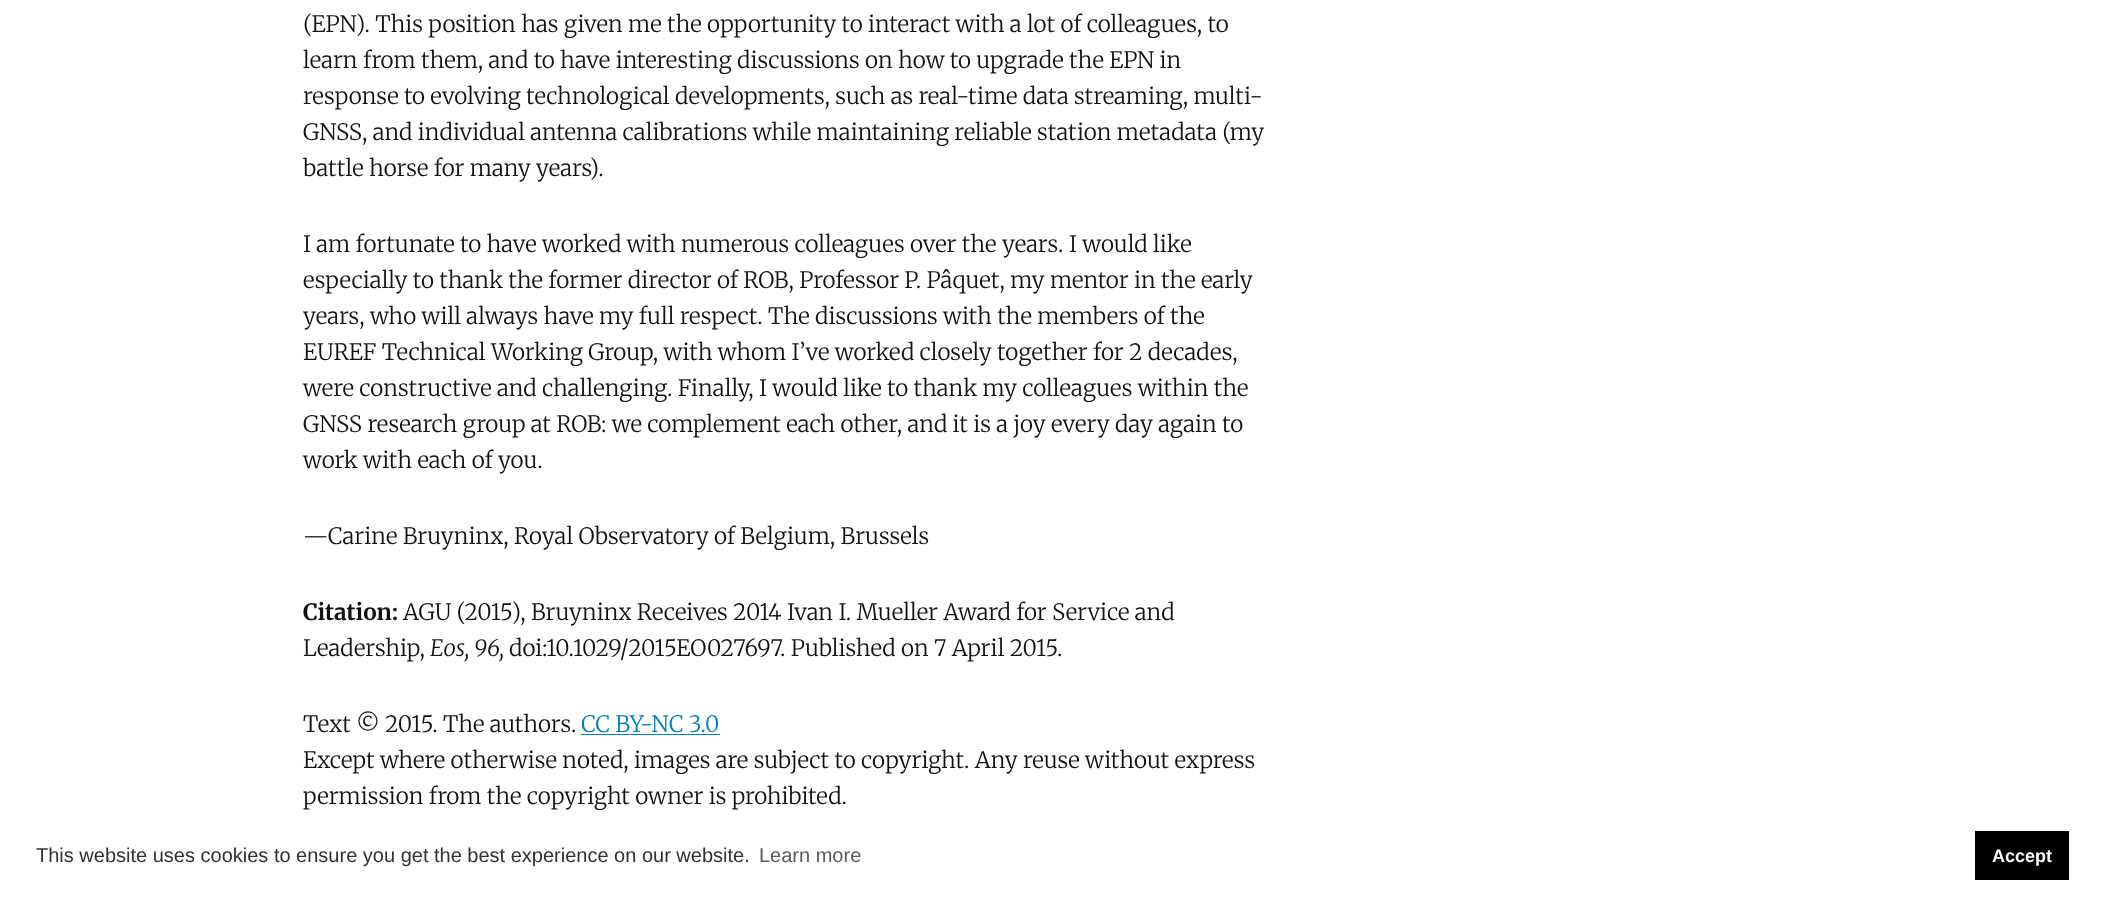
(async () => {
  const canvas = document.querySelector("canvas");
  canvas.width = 2104;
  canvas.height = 900;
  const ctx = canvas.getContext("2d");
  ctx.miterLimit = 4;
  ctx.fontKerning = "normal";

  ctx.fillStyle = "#ffffff";
  ctx.fillRect(0, 0, 2104, 900);
  ctx.fillStyle = "#007dba";
  ctx.fillRect(581, 734, 139, 1);
  ctx.fillStyle = "#000000";
  ctx.fillRect(1975, 831, 94, 49);
  ctx.font = "300 22.5px Merriweather";
  ctx.fillStyle = "#111111";
  for (const [text, x, y] of [
    ["(EPN). This position has given me the opportunity to interact with a lot of colleagues, to", 303, 32],
    ["learn from them, and to have interesting discussions on how to upgrade the EPN in", 303, 68],
    ["response to evolving technological developments, such as real-time data streaming, multi-", 303, 104],
    ["GNSS, and individual antenna calibrations while maintaining reliable station metadata (my", 303, 140],
    ["battle horse for many years).", 303, 176],
    ["I am fortunate to have worked with numerous colleagues over the years. I would like", 303, 252],
    ["especially to thank the former director of ROB, Professor P. Pâquet, my mentor in the early", 303, 288],
    ["years, who will always have my full respect. The discussions with the members of the", 303, 324],
    ["EUREF Technical Working Group, with whom I’ve worked closely together for 2 decades,", 303, 360],
    ["were constructive and challenging. Finally, I would like to thank my colleagues within the", 303, 396],
    ["GNSS research group at ROB: we complement each other, and it is a joy every day again to", 303, 432],
    ["work with each of you.", 303, 468],
    ["—Carine Bruyninx, Royal Observatory of Belgium, Brussels", 303, 544],
  ]) {
    ctx.fillText(text, x, y);
  }
  ctx.font = "bold 22.5px Merriweather";
  ctx.fillText("Citation:", 303, 620);
  ctx.font = "300 22.5px Merriweather";
  ctx.fillText("AGU (2015), Bruyninx Receives 2014 Ivan I. Mueller Award for Service and", 403, 620);
  ctx.fillText("Leadership,", 303, 656);
  ctx.font = "italic 300 22.5px Merriweather";
  ctx.fillText("Eos, 96,", 430, 656);
  ctx.font = "300 22.5px Merriweather";
  ctx.fillText("doi:10.1029/2015EO027697. Published on 7 April 2015.", 509, 656);
  ctx.fillText("Text © 2015. The authors.", 303, 732);
  ctx.fillStyle = "#007dba";
  ctx.fillText("CC BY-NC 3.0", 581, 732);
  ctx.fillStyle = "#111111";
  ctx.fillText("Except where otherwise noted, images are subject to copyright. Any reuse without express", 303, 768);
  ctx.fillText("permission from the copyright owner is prohibited.", 303, 804);
  ctx.font = "20px Liberation Sans";
  ctx.fillStyle = "#303133";
  ctx.fillText("This website uses cookies to ensure you get the best experience on our website.", 36, 862);
  ctx.fillStyle = "#595a5c";
  ctx.fillText("Learn more", 759, 862);
  ctx.font = "bold 18px Liberation Sans";
  ctx.fillStyle = "#ffffff";
  ctx.fillText("Accept", 1992, 862);
})();
